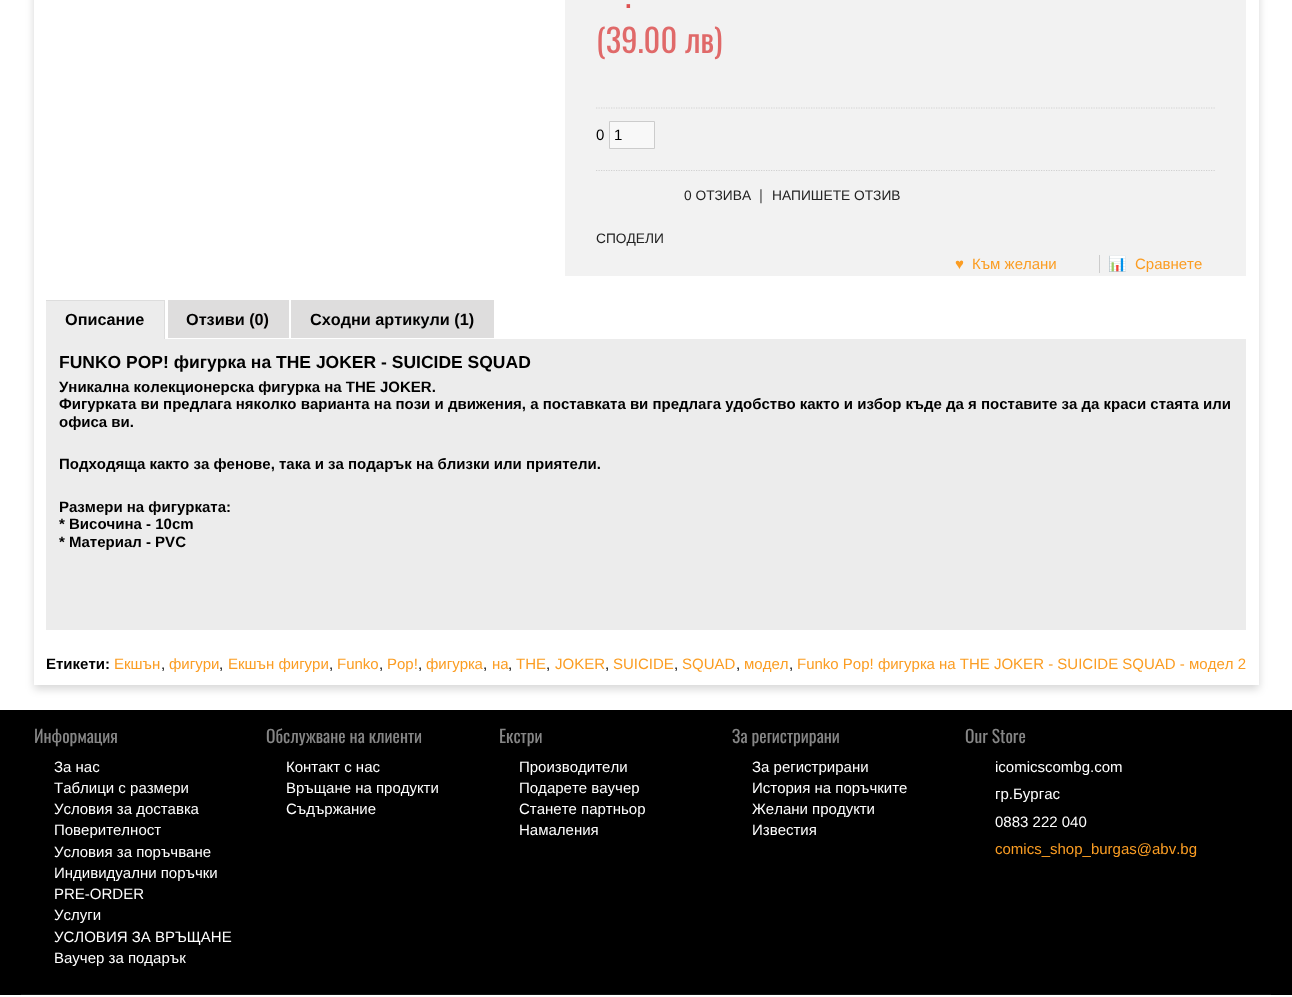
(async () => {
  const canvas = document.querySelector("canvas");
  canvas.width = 1292;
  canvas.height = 997;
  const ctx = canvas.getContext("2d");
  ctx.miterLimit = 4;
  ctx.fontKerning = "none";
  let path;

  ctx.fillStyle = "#ffffff";
  ctx.fillRect(0, 0, 1292, 997);
  ctx.fillStyle = "rgba(0, 0, 0, 0.16)";
  ctx.filter = "blur(4.5px)";
  ctx.beginPath();
  ctx.rect(34, -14, 1225, 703);
  ctx.fill();
  ctx.filter = "none";
  ctx.fillStyle = "#ffffff";
  ctx.fillRect(34, 0, 1225, 685);
  ctx.fillStyle = "#f2f2f2";
  ctx.fillRect(565, 0, 681, 276);
  path = new Path2D("M596 108H1215");
  ctx.strokeStyle = "#d1d1d1";
  ctx.lineWidth = 1.2;
  ctx.setLineDash([1.25, 1.25]);
  ctx.stroke(path);
  path = new Path2D("M596 170.5H1215");
  ctx.stroke(path);
  ctx.fillStyle = "#f8f8f8";
  ctx.beginPath();
  ctx.rect(609.5, 121.5, 45, 27);
  ctx.fill();
  ctx.strokeStyle = "#cccccc";
  ctx.lineWidth = 1;
  ctx.setLineDash([]);
  ctx.stroke();
  for (const [x, y, w, h, color] of [
    [1099, 255, 1, 18, "#cccccc"],
    [46, 301, 118, 38, "#ececec"],
    [46, 300, 119, 1, "#dddddd"],
    [164, 300, 1, 39, "#dddddd"],
    [168, 300, 121, 38, "#dedddd"],
    [291, 300, 203, 38, "#dedddd"],
    [46, 339, 1200, 291, "#ececec"],
    [0, 710, 1292, 285, "#000000"],
    [21, 994, 1250, 1, "#111111"],
  ]) {
    ctx.fillStyle = color;
    ctx.fillRect(x, y, w, h);
  }
  ctx.font = "32.5px Oswald";
  ctx.fillStyle = "#dd5151";
  ctx.fillText(".", 625, 8);
  ctx.fillStyle = "#e06969";
  ctx.fillText("(39.00 лв)", 596, 53);
  ctx.font = "15px Liberation Sans";
  ctx.fillStyle = "#000000";
  ctx.fillText("0", 596, 140);
  ctx.fillText("1", 614, 140);
  ctx.fillStyle = "#fb9d23";
  ctx.fillText("♥", 955, 269);
  ctx.fillText("Към желани", 972, 269);
  ctx.font = "15px Noto Color Emoji";
  ctx.fillText("📊", 1108, 269);
  ctx.font = "15px Liberation Sans";
  ctx.fillText("Сравнете", 1135, 269);
  ctx.font = "13.75px Liberation Sans";
  ctx.fillStyle = "#222222";
  ctx.fillText("0 ОТЗИВА", 684, 200);
  ctx.font = "15px Liberation Sans";
  ctx.fillStyle = "#4d4d4d";
  ctx.fillText("|", 759, 200);
  ctx.font = "13.75px Liberation Sans";
  ctx.fillStyle = "#222222";
  ctx.fillText("НАПИШЕТЕ ОТЗИВ", 772, 200);
  ctx.fillText("СПОДЕЛИ", 596, 243);
  ctx.font = "bold 16.25px Liberation Sans";
  ctx.fillStyle = "#000000";
  for (const [text, x, y] of [
    ["Описание", 65, 325],
    ["Отзиви (0)", 186, 325],
    ["Сходни артикули (1)", 310, 325],
  ]) {
    ctx.fillText(text, x, y);
  }
  ctx.font = "bold 17.5px Liberation Sans";
  ctx.fillText("FUNKO POP! фигурка на THE JOKER - SUICIDE SQUAD", 59, 368);
  ctx.font = "bold 15px Liberation Sans";
  for (const [text, x, y] of [
    ["Уникална колекционерска фигурка на THE JOKER.", 59, 392],
    ["Фигурката ви предлага няколко варианта на пози и движения, а поставката ви предлага удобство както и избор къде да я поставите за да краси стаята или", 59, 409],
    ["офиса ви.", 59, 427],
    ["Подходяща както за фенове, така и за подарък на близки или приятели.", 59, 469],
    ["Размери на фигурката:", 59, 512],
    ["* Височина - 10cm", 59, 529],
    ["* Материал - PVC", 59, 547],
    ["Етикети:", 46, 669],
  ]) {
    ctx.fillText(text, x, y);
  }
  ctx.font = "15px Liberation Sans";
  ctx.fillStyle = "#fb9d23";
  ctx.fillText("Екшън", 114, 669);
  ctx.fillStyle = "#000000";
  ctx.fillText(",", 161, 669);
  ctx.fillStyle = "#fb9d23";
  ctx.fillText("фигури", 169, 669);
  ctx.fillStyle = "#000000";
  ctx.fillText(",", 219, 669);
  ctx.fillStyle = "#fb9d23";
  ctx.fillText("Екшън фигури", 228, 669);
  ctx.fillStyle = "#000000";
  ctx.fillText(",", 329, 669);
  ctx.fillStyle = "#fb9d23";
  ctx.fillText("Funko", 337, 669);
  ctx.fillStyle = "#000000";
  ctx.fillText(",", 379, 669);
  ctx.fillStyle = "#fb9d23";
  ctx.fillText("Pop!", 387, 669);
  ctx.fillStyle = "#000000";
  ctx.fillText(",", 418, 669);
  ctx.fillStyle = "#fb9d23";
  ctx.fillText("фигурка", 426, 669);
  ctx.fillStyle = "#000000";
  ctx.fillText(",", 483, 669);
  ctx.fillStyle = "#fb9d23";
  ctx.fillText("на", 492, 669);
  ctx.fillStyle = "#000000";
  ctx.fillText(",", 508, 669);
  ctx.fillStyle = "#fb9d23";
  ctx.fillText("THE", 516, 669);
  ctx.fillStyle = "#000000";
  ctx.fillText(",", 546, 669);
  ctx.fillStyle = "#fb9d23";
  ctx.fillText("JOKER", 555, 669);
  ctx.fillStyle = "#000000";
  ctx.fillText(",", 605, 669);
  ctx.fillStyle = "#fb9d23";
  ctx.fillText("SUICIDE", 613, 669);
  ctx.fillStyle = "#000000";
  ctx.fillText(",", 674, 669);
  ctx.fillStyle = "#fb9d23";
  ctx.fillText("SQUAD", 682, 669);
  ctx.fillStyle = "#000000";
  ctx.fillText(",", 736, 669);
  ctx.fillStyle = "#fb9d23";
  ctx.fillText("модел", 744, 669);
  ctx.fillStyle = "#000000";
  ctx.fillText(",", 789, 669);
  ctx.fillStyle = "#fb9d23";
  ctx.fillText("Funko Pop! фигурка на THE JOKER - SUICIDE SQUAD - модел 2", 797, 669);
  ctx.font = "17.5px Oswald";
  ctx.fillStyle = "#868686";
  ctx.fillText("Информация", 34, 743);
  ctx.font = "15px Liberation Sans";
  ctx.fillStyle = "#ffffff";
  for (const [text, x, y] of [
    ["За нас", 54, 772],
    ["Таблици с размери", 54, 793],
    ["Условия за доставка", 54, 814],
    ["Поверителност", 54, 835],
    ["Условия за поръчване", 54, 857],
    ["Индивидуални поръчки", 54, 878],
    ["PRE-ORDER", 54, 899],
    ["Услуги", 54, 920],
    ["УСЛОВИЯ ЗА ВРЪЩАНЕ", 54, 942],
    ["Ваучер за подарък", 54, 963],
  ]) {
    ctx.fillText(text, x, y);
  }
  ctx.font = "17.5px Oswald";
  ctx.fillStyle = "#868686";
  ctx.fillText("Обслужване на клиенти", 266, 743);
  ctx.font = "15px Liberation Sans";
  ctx.fillStyle = "#ffffff";
  for (const [text, x, y] of [
    ["Контакт с нас", 286, 772],
    ["Връщане на продукти", 286, 793],
    ["Съдържание", 286, 814],
  ]) {
    ctx.fillText(text, x, y);
  }
  ctx.font = "17.5px Oswald";
  ctx.fillStyle = "#868686";
  ctx.fillText("Екстри", 499, 743);
  ctx.font = "15px Liberation Sans";
  ctx.fillStyle = "#ffffff";
  for (const [text, x, y] of [
    ["Производители", 519, 772],
    ["Подарете ваучер", 519, 793],
    ["Станете партньор", 519, 814],
    ["Намаления", 519, 835],
  ]) {
    ctx.fillText(text, x, y);
  }
  ctx.font = "17.5px Oswald";
  ctx.fillStyle = "#868686";
  ctx.fillText("За регистрирани", 732, 743);
  ctx.font = "15px Liberation Sans";
  ctx.fillStyle = "#ffffff";
  for (const [text, x, y] of [
    ["За регистрирани", 752, 772],
    ["История на поръчките", 752, 793],
    ["Желани продукти", 752, 814],
    ["Известия", 752, 835],
  ]) {
    ctx.fillText(text, x, y);
  }
  ctx.font = "17.5px Oswald";
  ctx.fillStyle = "#868686";
  ctx.fillText("Our Store", 965, 743);
  ctx.font = "15px Liberation Sans";
  ctx.fillStyle = "#ffffff";
  for (const [text, x, y] of [
    ["icomicscombg.com", 995, 772],
    ["гр.Бургас", 995, 799],
    ["0883 222 040", 995, 827],
  ]) {
    ctx.fillText(text, x, y);
  }
  ctx.fillStyle = "#fb9d23";
  ctx.fillText("comics_shop_burgas@abv.bg", 995, 854);
})();
